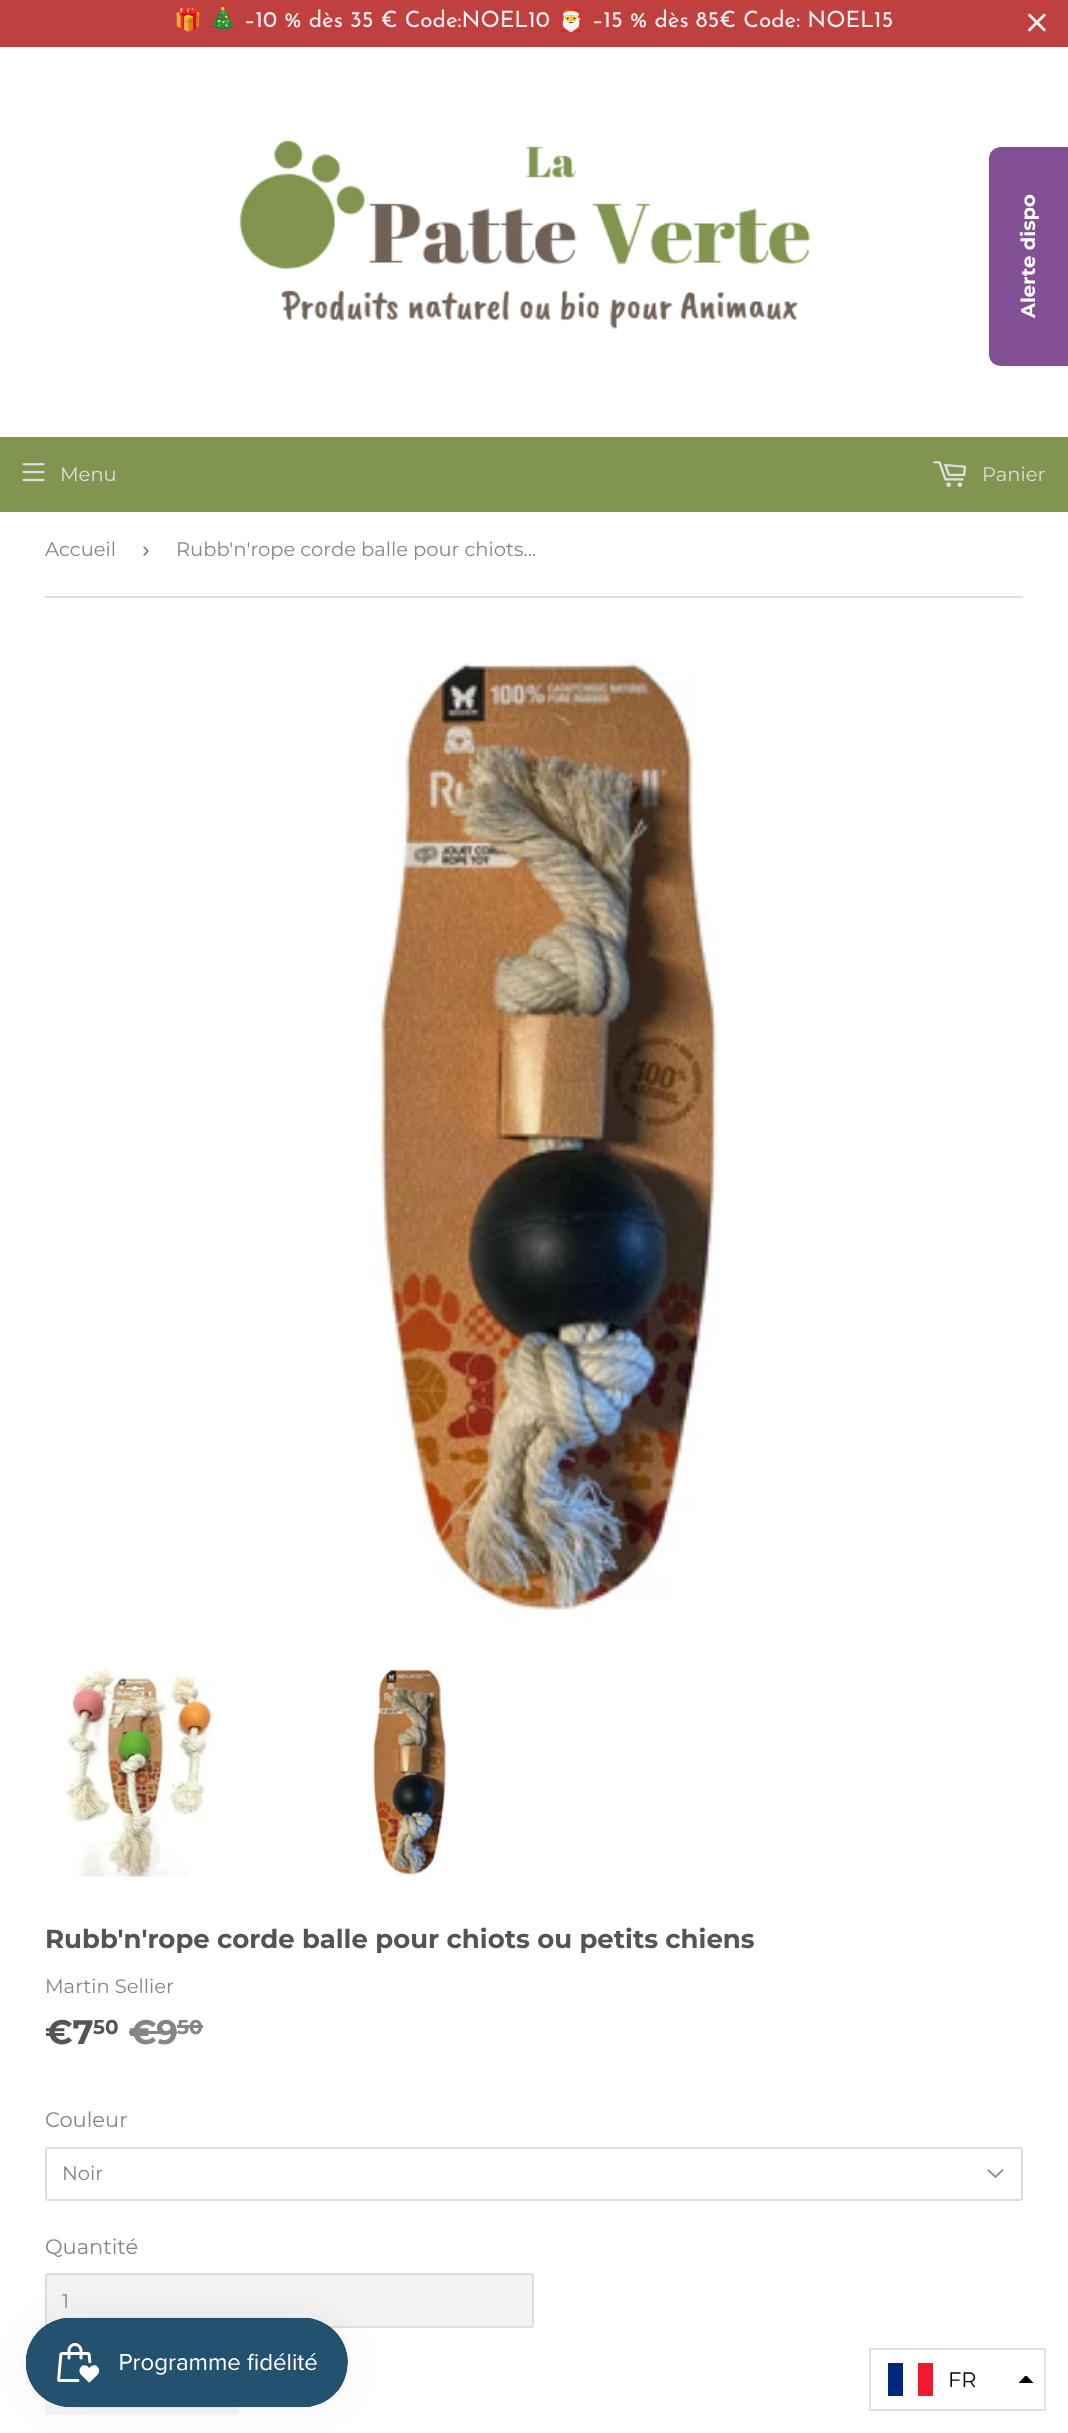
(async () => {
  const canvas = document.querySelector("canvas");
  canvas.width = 1068;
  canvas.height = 2433;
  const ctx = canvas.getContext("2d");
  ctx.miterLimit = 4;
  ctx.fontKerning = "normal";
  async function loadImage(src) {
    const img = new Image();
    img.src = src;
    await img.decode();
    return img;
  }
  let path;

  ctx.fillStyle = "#ffffff";
  ctx.fillRect(0, 0, 1068, 2433);
  ctx.fillStyle = "#c04040";
  ctx.fillRect(0, 0, 1068, 47);
  ctx.drawImage(await loadImage("img/1.png"), 1028, 13, 18, 19);
  ctx.drawImage(await loadImage("img/2.png"), 239, 140, 572, 189);
  ctx.fillStyle = "#829550";
  ctx.fillRect(0, 437, 1068, 75);
  ctx.drawImage(await loadImage("img/3.png"), 22, 463, 23, 19);
  ctx.drawImage(await loadImage("img/4.png"), 933, 461, 34, 26);
  ctx.fillStyle = "#835095";
  path = new Path2D("M989 354V159C989 152 994 147 1001 147H1068V366H1001C994 366 989 361 989 354Z");
  ctx.fill(path);
  ctx.fillStyle = "#dedede";
  ctx.fillRect(45, 596, 978, 2);
  ctx.drawImage(await loadImage("img/5.png"), 371, 663, 348, 957);
  ctx.drawImage(await loadImage("img/6.png"), 65, 1667, 150, 210);
  ctx.drawImage(await loadImage("img/7.png"), 368, 1665, 80, 212);
  ctx.fillStyle = "#858585";
  ctx.fillRect(129, 2031, 48, 3);
  ctx.fillRect(177, 2025, 26, 3);
  ctx.drawImage(await loadImage("img/8.png"), 987, 2169, 17, 9);
  ctx.beginPath();
  ctx.roundRect(46, 2148, 976, 52, 2);
  ctx.strokeStyle = "#dedede";
  ctx.lineWidth = 2;
  ctx.stroke();
  ctx.fillStyle = "#f3f3f3";
  ctx.beginPath();
  ctx.roundRect(46, 2274, 487, 53, 2);
  ctx.fill();
  ctx.stroke();
  ctx.fillStyle = "#f6f6f6";
  ctx.beginPath();
  ctx.roundRect(45, 2358, 194, 57, 3);
  ctx.fill();
  ctx.fillStyle = "rgba(0, 0, 0, 0.05)";
  ctx.filter = "blur(19px)";
  ctx.beginPath();
  ctx.roundRect(26, 2318, 322, 90, 45);
  ctx.fill();
  ctx.filter = "none";
  ctx.drawImage(await loadImage("img/9.png"), 25, 2317, 323, 91);
  ctx.strokeStyle = "#e0e0e0";
  ctx.strokeRect(870, 2349, 175, 61);
  ctx.fillStyle = "#00267f";
  ctx.fillRect(888, 2363, 15, 33);
  ctx.fillStyle = "#f31830";
  ctx.fillRect(918, 2363, 15, 33);
  ctx.save();
  ctx.beginPath();
  ctx.rect(1019, 2376, 15, 8);
  ctx.clip();
  ctx.fillStyle = "#000000";
  path = new Path2D("M1018.5 2383L1026 2375L1033.5 2383Z");
  ctx.fill(path, "evenodd");
  ctx.restore();
  ctx.font = "22.5px Noto Color Emoji";
  ctx.fillStyle = "#f5f0ef";
  ctx.fillText("🎁", 174, 27);
  ctx.fillText("🎄", 209, 27);
  ctx.font = "100 22.5px Josefin Sans";
  ctx.fillText("–10 % dès 35 € Code:NOEL10", 244, 27);
  ctx.font = "22.5px Noto Color Emoji";
  ctx.fillText("🎅", 557, 27);
  ctx.font = "100 22.5px Josefin Sans";
  ctx.fillText("–15 % dès 85€ Code: NOEL15", 592, 27);
  ctx.font = "19.5px Montserrat";
  ctx.fillStyle = "#dedede";
  ctx.fillText("Menu", 60, 481);
  ctx.fillText("Panier", 982, 481);
  ctx.font = "bold 19.5px Montserrat";
  ctx.fillStyle = "#ffffff";
  ctx.save();
  ctx.translate(1035, 318);
  ctx.rotate(-90 * Math.PI / 180);
  ctx.fillText("Alerte dispo", 0, 0);
  ctx.restore();
  ctx.font = "19.5px Montserrat";
  ctx.fillStyle = "#858585";
  ctx.fillText("Accueil", 45, 556);
  ctx.font = "22.5px Liberation Sans";
  ctx.fillStyle = "#767676";
  ctx.fillText("›", 142, 557);
  ctx.font = "19.5px Montserrat";
  ctx.fillStyle = "#858585";
  ctx.fillText("Rubb'n'rope corde balle pour chiots…", 176, 556);
  ctx.font = "bold 26px Montserrat";
  ctx.fillStyle = "#545454";
  ctx.fillText("Rubb'n'rope corde balle pour chiots ou petits chiens", 45, 1948);
  ctx.font = "19.5px Montserrat";
  ctx.fillStyle = "#858585";
  ctx.fillText("Martin Sellier", 45, 1993);
  ctx.font = "bold 34px Montserrat";
  ctx.fillStyle = "#545454";
  ctx.fillText("€7", 45, 2044);
  ctx.font = "bold 20px Montserrat";
  ctx.fillText("50", 93, 2034);
  ctx.font = "bold 34px Montserrat";
  ctx.fillStyle = "#858585";
  ctx.fillText("€9", 129, 2044);
  ctx.font = "bold 20px Montserrat";
  ctx.fillText("50", 177, 2034);
  ctx.font = "21px Montserrat";
  ctx.fillText("Couleur", 45, 2127);
  ctx.font = "19.5px Montserrat";
  ctx.fillText("Noir", 62, 2180);
  ctx.font = "21px Montserrat";
  ctx.fillText("Quantité", 45, 2254);
  ctx.font = "19.5px Montserrat";
  ctx.fillText("1", 62, 2308);
  ctx.font = "21px Montserrat";
  ctx.fillStyle = "#000000";
  ctx.fillText("FR", 948, 2387);
})();
